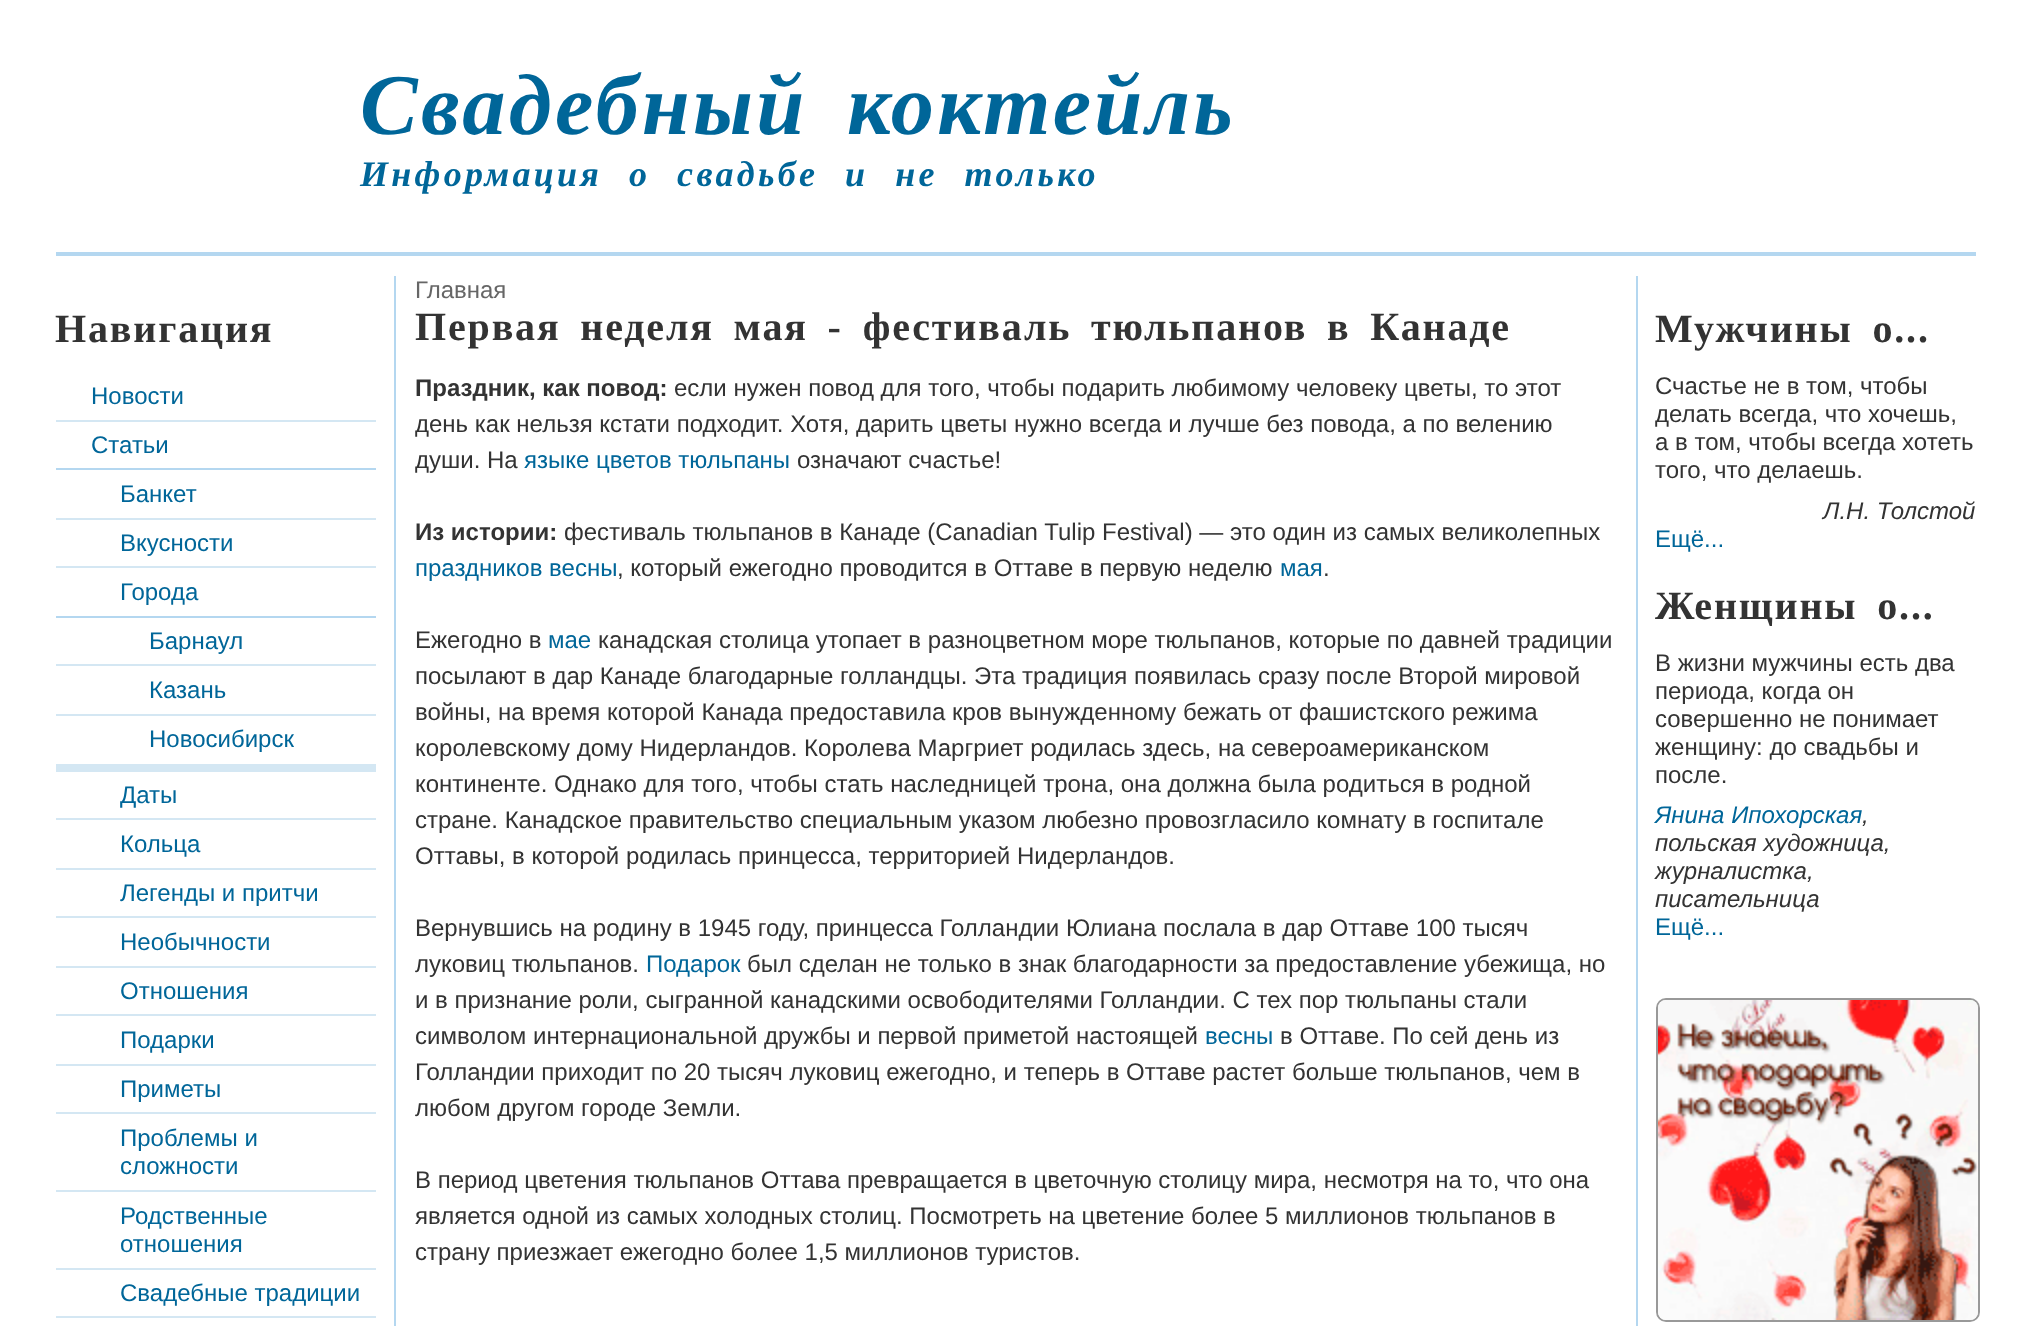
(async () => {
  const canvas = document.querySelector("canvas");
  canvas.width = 2029;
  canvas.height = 1326;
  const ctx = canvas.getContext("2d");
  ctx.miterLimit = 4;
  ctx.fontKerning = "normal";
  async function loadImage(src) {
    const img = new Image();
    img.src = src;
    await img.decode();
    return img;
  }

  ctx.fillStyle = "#ffffff";
  ctx.fillRect(0, 0, 2029, 1326);
  for (const [x, y, w, h, color] of [
    [56, 252, 1920, 4, "#b4d7f0"],
    [56, 420, 320, 2, "#d4e7f3"],
    [56, 468, 320, 2, "#b4d7f0"],
    [56, 518, 320, 2, "#d4e7f3"],
    [56, 566, 320, 2, "#d4e7f3"],
    [56, 616, 320, 2, "#b4d7f0"],
    [56, 764, 320, 8, "#d4e7f3"],
    [56, 664, 320, 2, "#d4e7f3"],
    [56, 714, 320, 2, "#d4e7f3"],
    [56, 818, 320, 2, "#d4e7f3"],
    [56, 868, 320, 2, "#d4e7f3"],
    [56, 916, 320, 2, "#d4e7f3"],
    [56, 966, 320, 2, "#d4e7f3"],
    [56, 1014, 320, 2, "#d4e7f3"],
    [56, 1064, 320, 2, "#d4e7f3"],
    [56, 1112, 320, 2, "#d4e7f3"],
    [56, 1190, 320, 2, "#d4e7f3"],
    [56, 1268, 320, 2, "#d4e7f3"],
    [56, 1316, 320, 2, "#d4e7f3"],
    [1636, 276, 2, 1050, "#b4d7f0"],
    [394, 276, 2, 1050, "#b4d7f0"],
  ]) {
    ctx.fillStyle = color;
    ctx.fillRect(x, y, w, h);
  }
  ctx.beginPath();
  ctx.roundRect(1657, 999, 322, 322, 9);
  ctx.strokeStyle = "#999999";
  ctx.lineWidth = 2;
  ctx.stroke();
  ctx.drawImage(await loadImage("img/1.png"), 1658, 1000, 320, 320);
  ctx.letterSpacing = "3.3px";
  ctx.wordSpacing = "14.5px";
  ctx.font = "italic bold 86.4px Liberation Serif";
  ctx.fillStyle = "#006699";
  ctx.fillText("Свадебный коктейль", 360, 134);
  ctx.font = "italic bold 36px Liberation Serif";
  ctx.fillText("Информация о свадьбе и не только", 360, 186);
  ctx.letterSpacing = "1.85px";
  ctx.wordSpacing = "0px";
  ctx.font = "bold 40px Liberation Serif";
  ctx.fillStyle = "#333333";
  ctx.fillText("Навигация", 55, 342);
  ctx.letterSpacing = "0px";
  ctx.font = "24px Liberation Sans";
  ctx.fillStyle = "#006699";
  for (const [text, x, y] of [
    ["Новости", 91, 404],
    ["Статьи", 91, 453],
    ["Банкет", 120, 502],
    ["Вкусности", 120, 551],
    ["Города", 120, 600],
    ["Барнаул", 149, 649],
    ["Казань", 149, 698],
    ["Новосибирск", 149, 747],
    ["Даты", 120, 803],
    ["Кольца", 120, 852],
    ["Легенды и притчи", 120, 901],
    ["Необычности", 120, 950],
    ["Отношения", 120, 999],
    ["Подарки", 120, 1048],
    ["Приметы", 120, 1097],
    ["Проблемы и", 120, 1146],
    ["сложности", 120, 1174],
    ["Родственные", 120, 1224],
    ["отношения", 120, 1252],
    ["Свадебные традиции", 120, 1301],
  ]) {
    ctx.fillText(text, x, y);
  }
  ctx.fillStyle = "#666666";
  ctx.fillText("Главная", 415, 298);
  ctx.letterSpacing = "1.85px";
  ctx.wordSpacing = "8px";
  ctx.font = "bold 40px Liberation Serif";
  ctx.fillStyle = "#333333";
  ctx.fillText("Первая неделя мая - фестиваль тюльпанов в Канаде", 415, 340);
  ctx.letterSpacing = "0px";
  ctx.wordSpacing = "0px";
  ctx.font = "bold 24px Liberation Sans";
  ctx.fillText("Праздник, как повод:", 415, 396);
  ctx.font = "24px Liberation Sans";
  for (const [text, x, y] of [
    ["если нужен повод для того, чтобы подарить любимому человеку цветы, то этот", 674, 396],
    ["день как нельзя кстати подходит. Хотя, дарить цветы нужно всегда и лучше без повода, а по велению", 415, 432],
    ["души. На", 415, 468],
  ]) {
    ctx.fillText(text, x, y);
  }
  ctx.fillStyle = "#006699";
  ctx.fillText("языке цветов тюльпаны", 524, 468);
  ctx.fillStyle = "#333333";
  ctx.fillText("означают счастье!", 797, 468);
  ctx.font = "bold 24px Liberation Sans";
  ctx.fillText("Из истории:", 415, 540);
  ctx.font = "24px Liberation Sans";
  ctx.fillText("фестиваль тюльпанов в Канаде (Canadian Tulip Festival) — это один из самых великолепных", 564, 540);
  ctx.fillStyle = "#006699";
  ctx.fillText("праздников весны", 415, 576);
  ctx.fillStyle = "#333333";
  ctx.fillText(", который ежегодно проводится в Оттаве в первую неделю", 617, 576);
  ctx.fillStyle = "#006699";
  ctx.fillText("мая", 1280, 576);
  ctx.fillStyle = "#333333";
  ctx.fillText(".", 1323, 576);
  ctx.fillText("Ежегодно в", 415, 648);
  ctx.fillStyle = "#006699";
  ctx.fillText("мае", 548, 648);
  ctx.fillStyle = "#333333";
  for (const [text, x, y] of [
    ["канадская столица утопает в разноцветном море тюльпанов, которые по давней традиции", 598, 648],
    ["посылают в дар Канаде благодарные голландцы. Эта традиция появилась сразу после Второй мировой", 415, 684],
    ["войны, на время которой Канада предоставила кров вынужденному бежать от фашистского режима", 415, 720],
    ["королевскому дому Нидерландов. Королева Маргриет родилась здесь, на североамериканском", 415, 756],
    ["континенте. Однако для того, чтобы стать наследницей трона, она должна была родиться в родной", 415, 792],
    ["стране. Канадское правительство специальным указом любезно провозгласило комнату в госпитале", 415, 828],
    ["Оттавы, в которой родилась принцесса, территорией Нидерландов.", 415, 864],
    ["Вернувшись на родину в 1945 году, принцесса Голландии Юлиана послала в дар Оттаве 100 тысяч", 415, 936],
    ["луковиц тюльпанов.", 415, 972],
  ]) {
    ctx.fillText(text, x, y);
  }
  ctx.fillStyle = "#006699";
  ctx.fillText("Подарок", 646, 972);
  ctx.fillStyle = "#333333";
  for (const [text, x, y] of [
    ["был сделан не только в знак благодарности за предоставление убежища, но", 747, 972],
    ["и в признание роли, сыгранной канадскими освободителями Голландии. С тех пор тюльпаны стали", 415, 1008],
    ["символом интернациональной дружбы и первой приметой настоящей", 415, 1044],
  ]) {
    ctx.fillText(text, x, y);
  }
  ctx.fillStyle = "#006699";
  ctx.fillText("весны", 1205, 1044);
  ctx.fillStyle = "#333333";
  for (const [text, x, y] of [
    ["в Оттаве. По сей день из", 1280, 1044],
    ["Голландии приходит по 20 тысяч луковиц ежегодно, и теперь в Оттаве растет больше тюльпанов, чем в", 415, 1080],
    ["любом другом городе Земли.", 415, 1116],
    ["В период цветения тюльпанов Оттава превращается в цветочную столицу мира, несмотря на то, что она", 415, 1188],
    ["является одной из самых холодных столиц. Посмотреть на цветение более 5 миллионов тюльпанов в", 415, 1224],
    ["страну приезжает ежегодно более 1,5 миллионов туристов.", 415, 1260],
  ]) {
    ctx.fillText(text, x, y);
  }
  ctx.letterSpacing = "1.85px";
  ctx.wordSpacing = "8px";
  ctx.font = "bold 40px Liberation Serif";
  ctx.fillText("Мужчины о...", 1655, 342);
  ctx.letterSpacing = "0px";
  ctx.wordSpacing = "0px";
  ctx.font = "24px Liberation Sans";
  for (const [text, x, y] of [
    ["Счастье не в том, чтобы", 1655, 394],
    ["делать всегда, что хочешь,", 1655, 422],
    ["а в том, чтобы всегда хотеть", 1655, 450],
    ["того, что делаешь.", 1655, 478],
  ]) {
    ctx.fillText(text, x, y);
  }
  ctx.font = "italic 24px Liberation Sans";
  ctx.fillText("Л.Н. Толстой", 1823, 519);
  ctx.font = "24px Liberation Sans";
  ctx.fillStyle = "#006699";
  ctx.fillText("Ещё...", 1655, 547);
  ctx.letterSpacing = "1.85px";
  ctx.wordSpacing = "8px";
  ctx.font = "bold 40px Liberation Serif";
  ctx.fillStyle = "#333333";
  ctx.fillText("Женщины о...", 1655, 619);
  ctx.letterSpacing = "0px";
  ctx.wordSpacing = "0px";
  ctx.font = "24px Liberation Sans";
  for (const [text, x, y] of [
    ["В жизни мужчины есть два", 1655, 671],
    ["периода, когда он", 1655, 699],
    ["совершенно не понимает", 1655, 727],
    ["женщину: до свадьбы и", 1655, 755],
    ["после.", 1655, 783],
  ]) {
    ctx.fillText(text, x, y);
  }
  ctx.font = "italic 24px Liberation Sans";
  ctx.fillStyle = "#006699";
  ctx.fillText("Янина Ипохорская", 1655, 823);
  ctx.fillStyle = "#333333";
  for (const [text, x, y] of [
    [",", 1862, 823],
    ["польская художница,", 1655, 851],
    ["журналистка,", 1655, 879],
    ["писательница", 1655, 907],
  ]) {
    ctx.fillText(text, x, y);
  }
  ctx.font = "24px Liberation Sans";
  ctx.fillStyle = "#006699";
  ctx.fillText("Ещё...", 1655, 935);
})();
